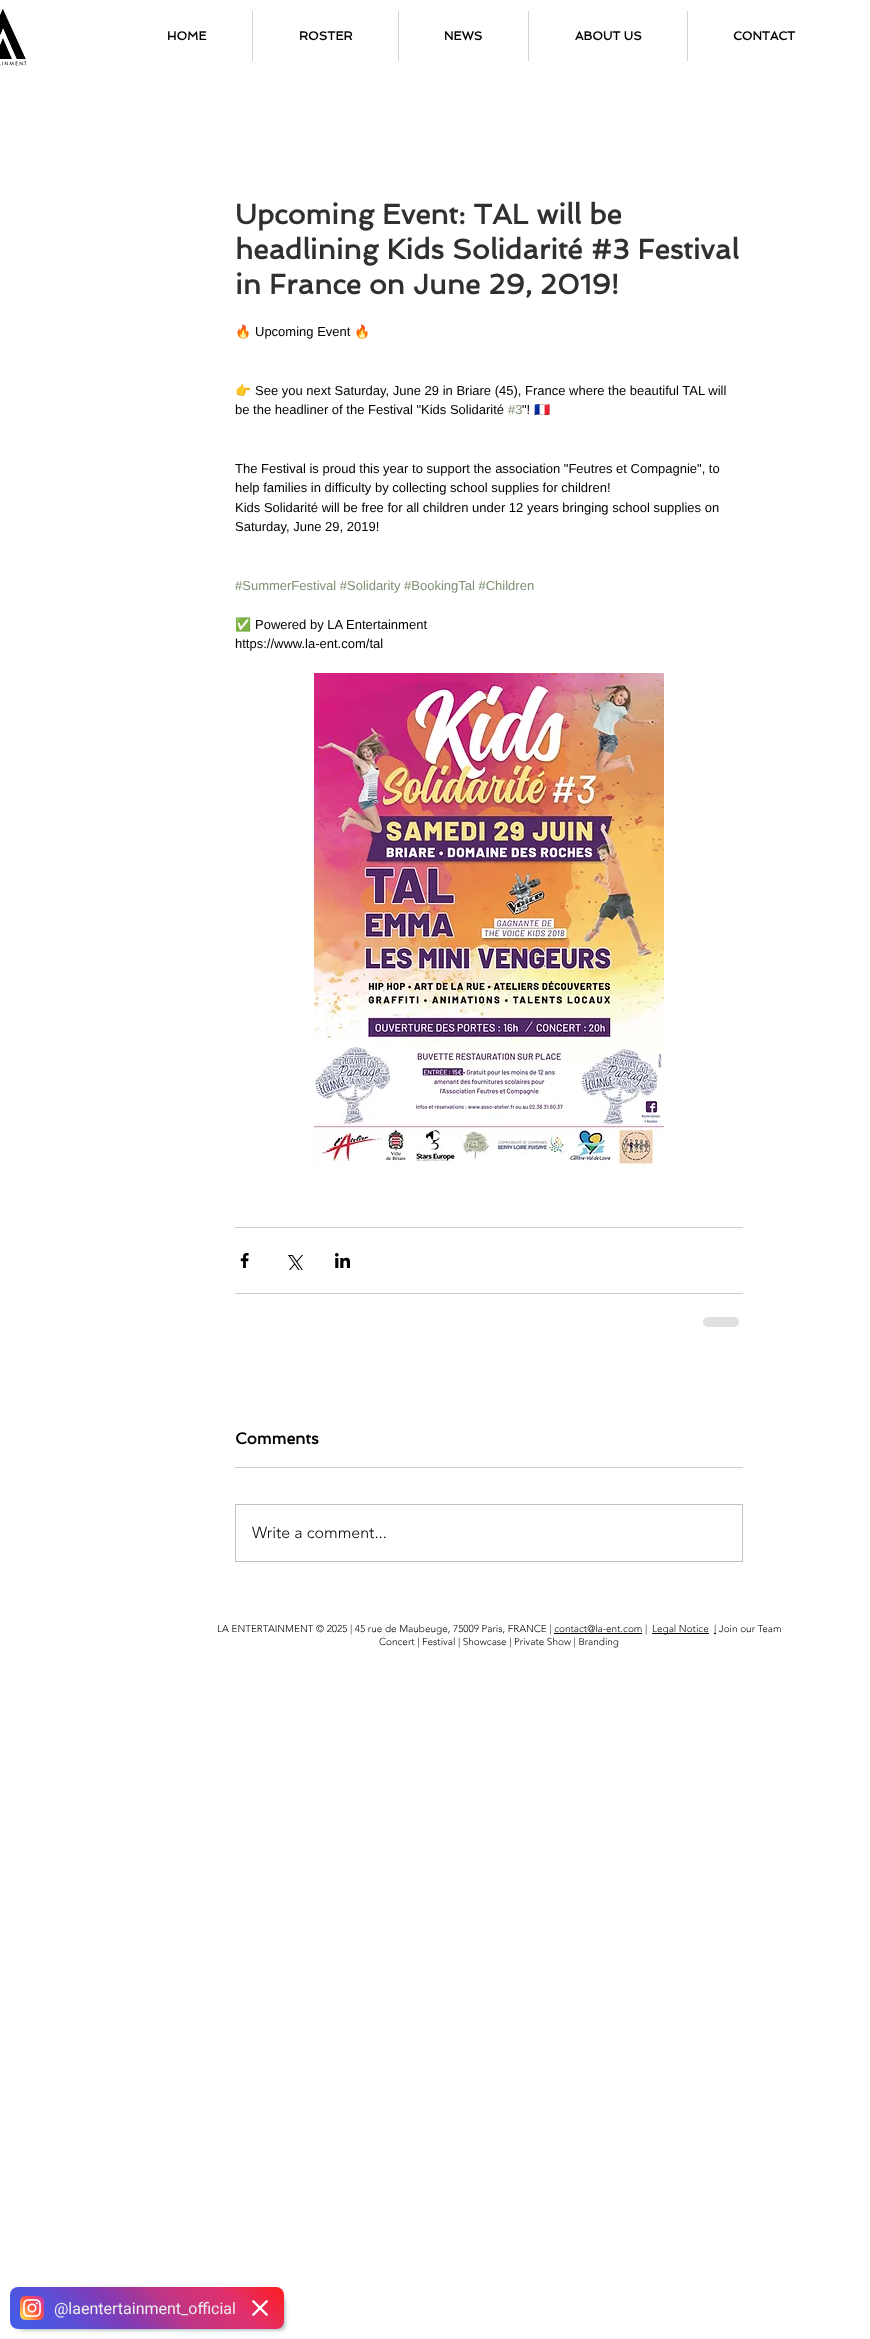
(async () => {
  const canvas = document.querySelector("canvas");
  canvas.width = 870;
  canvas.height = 2339;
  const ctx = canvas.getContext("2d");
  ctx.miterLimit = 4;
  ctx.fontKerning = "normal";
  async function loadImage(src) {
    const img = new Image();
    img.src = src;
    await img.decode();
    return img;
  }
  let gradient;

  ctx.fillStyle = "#ffffff";
  ctx.fillRect(0, 0, 870, 2339);
  ctx.drawImage(await loadImage("img/1.png"), 0, 8, 27, 60);
  for (const [x, y, w, h, color] of [
    [252, 11, 1, 50, "#d4d4d4"],
    [398, 11, 1, 50, "#d4d4d4"],
    [528, 11, 1, 50, "#d4d4d4"],
    [687, 11, 1, 50, "#d4d4d4"],
  ]) {
    ctx.fillStyle = color;
    ctx.fillRect(x, y, w, h);
  }
  ctx.drawImage(await loadImage("img/2.png"), 314, 673, 350, 495);
  ctx.fillStyle = "#cccccc";
  ctx.fillRect(235, 1227, 508, 1);
  ctx.drawImage(await loadImage("img/3.png"), 240, 1253, 9, 15);
  ctx.drawImage(await loadImage("img/4.png"), 288, 1255, 15, 15);
  ctx.drawImage(await loadImage("img/5.png"), 335, 1253, 15, 15);
  ctx.fillRect(235, 1293, 508, 1);
  ctx.fillStyle = "#e0e0e0";
  ctx.beginPath();
  ctx.roundRect(703, 1317, 36, 10, 5);
  ctx.fill();
  ctx.fillStyle = "#cccccc";
  ctx.fillRect(235, 1467, 508, 1);
  ctx.strokeStyle = "#c1c1c1";
  ctx.strokeRect(235.5, 1504.5, 507, 57);
  for (const [x, y, w, h, color] of [
    [554, 1633, 88, 1, "#000000"],
    [652, 1633, 57, 1, "#000000"],
    [714, 1633, 2, 1, "#000000"],
  ]) {
    ctx.fillStyle = color;
    ctx.fillRect(x, y, w, h);
  }
  ctx.fillStyle = "rgba(34, 60, 80, 0.6)";
  ctx.filter = "blur(2.5px)";
  ctx.beginPath();
  ctx.roundRect(20, 2297, 264, 32, 3);
  ctx.fill();
  ctx.filter = "none";
  gradient = ctx.createLinearGradient(68, 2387, 226, 2229);
  gradient.addColorStop(0, "#405de6");
  gradient.addColorStop(0.2, "#5851db");
  gradient.addColorStop(0.4, "#833ab4");
  gradient.addColorStop(0.6, "#c13584");
  gradient.addColorStop(0.8, "#e1306c");
  gradient.addColorStop(1, "#fd1d1d");
  ctx.fillStyle = gradient;
  ctx.beginPath();
  ctx.roundRect(10, 2287, 274, 42, 8);
  ctx.fill();
  ctx.drawImage(await loadImage("img/6.png"), 20, 2296, 24, 24);
  ctx.drawImage(await loadImage("img/7.png"), 251, 2299, 18, 18);
  ctx.font = "bold 12px Spinnaker";
  ctx.fillStyle = "#000000";
  for (const [text, x, y] of [
    ["HOME", 167, 40],
    ["ROSTER", 299, 40],
    ["NEWS", 444, 40],
    ["ABOUT US", 575, 40],
    ["CONTACT", 733, 40],
  ]) {
    ctx.fillText(text, x, y);
  }
  ctx.font = "bold 28px Spinnaker";
  ctx.fillStyle = "#303030";
  for (const [text, x, y] of [
    ["Upcoming Event: TAL will be", 235, 224],
    ["headlining Kids Solidarité #3 Festival", 235, 259],
    ["in France on June 29, 2019!", 235, 294],
  ]) {
    ctx.fillText(text, x, y);
  }
  ctx.font = "13px Noto Color Emoji";
  ctx.fillStyle = "#000000";
  ctx.fillText("🔥", 235, 336);
  ctx.font = "13px Liberation Sans";
  ctx.fillText("Upcoming Event", 255, 336);
  ctx.font = "13px Noto Color Emoji";
  ctx.fillText("🔥", 354, 336);
  ctx.fillText("👉", 235, 395);
  ctx.font = "13px Liberation Sans";
  ctx.fillText("See you next Saturday, June 29 in Briare (45), France where the beautiful TAL will", 255, 395);
  ctx.fillText("be the headliner of the Festival \"Kids Solidarité", 235, 414);
  ctx.fillStyle = "#7d9174";
  ctx.fillText("#3", 508, 414);
  ctx.fillStyle = "#000000";
  ctx.fillText("\"!", 522, 414);
  ctx.font = "13px Noto Color Emoji";
  ctx.fillText("🇫🇷", 534, 414);
  ctx.font = "13px Liberation Sans";
  for (const [text, x, y] of [
    ["The Festival is proud this year to support the association \"Feutres et Compagnie\", to", 235, 473],
    ["help families in difficulty by collecting school supplies for children!", 235, 492],
    ["Kids Solidarité will be free for all children under 12 years bringing school supplies on", 235, 512],
    ["Saturday, June 29, 2019!", 235, 531],
  ]) {
    ctx.fillText(text, x, y);
  }
  ctx.fillStyle = "#7d9174";
  ctx.fillText("#SummerFestival #Solidarity #BookingTal #Children", 235, 590);
  ctx.font = "13px Noto Color Emoji";
  ctx.fillStyle = "#000000";
  ctx.fillText("✅", 235, 629);
  ctx.font = "13px Liberation Sans";
  ctx.fillText("Powered by LA Entertainment", 255, 629);
  ctx.fillText("https://www.la-ent.com/tal", 235, 648);
  ctx.font = "bold 16px Spinnaker";
  ctx.fillText("Comments", 235, 1444);
  ctx.font = "300 16px 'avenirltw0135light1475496'";
  ctx.fillText("Write a comment...", 252, 1538);
  ctx.font = "300 10px 'avenirltw0135light1475496'";
  for (const [text, x, y] of [
    ["LA ENTERTAINMENT © 2025 | 45 rue de Maubeuge, 75009 Paris, FRANCE | contact@la-ent.com |", 217, 1632],
    ["Legal Notice", 652, 1632],
    ["| Join our Team", 714, 1632],
    ["Concert | Festival | Showcase | Private Show | Branding", 379, 1645],
  ]) {
    ctx.fillText(text, x, y);
  }
  ctx.font = "16px Roboto";
  ctx.fillStyle = "#eeeeee";
  ctx.fillText("@laentertainment_official", 54, 2314);
})();
